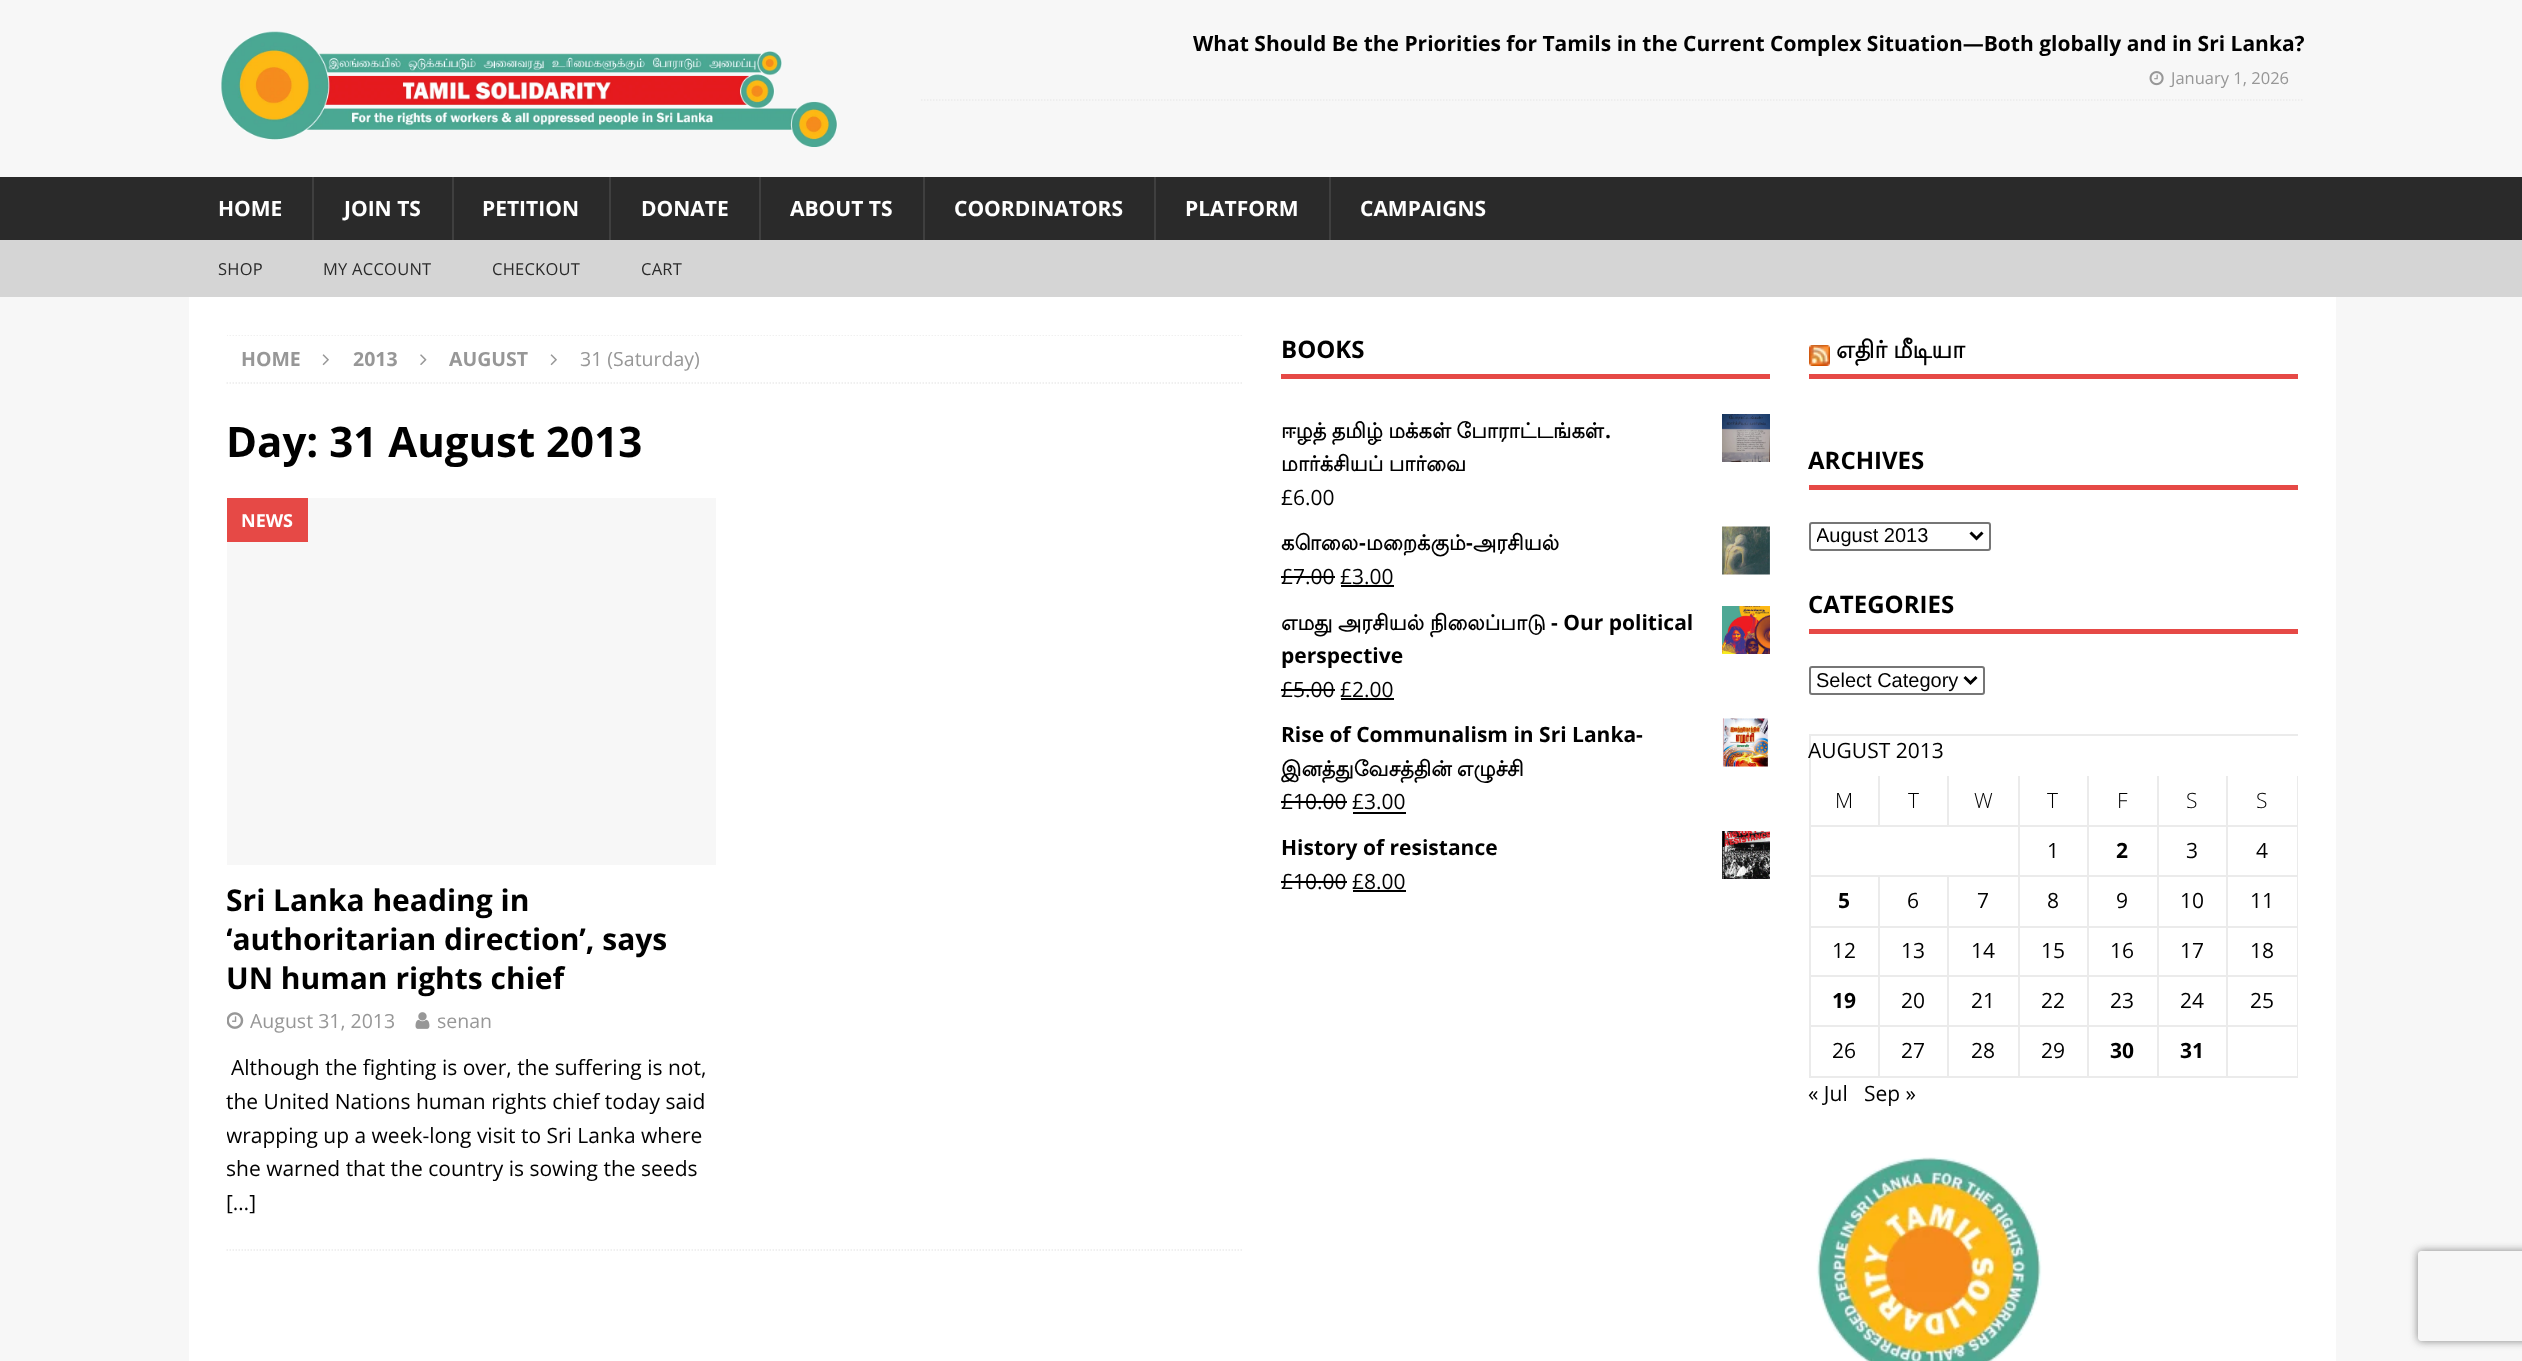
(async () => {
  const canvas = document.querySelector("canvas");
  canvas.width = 2522;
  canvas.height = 1361;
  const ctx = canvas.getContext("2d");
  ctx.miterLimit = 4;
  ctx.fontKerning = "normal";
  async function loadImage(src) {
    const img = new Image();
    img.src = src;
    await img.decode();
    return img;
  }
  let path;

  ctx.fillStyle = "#f7f7f7";
  ctx.fillRect(0, 0, 2522, 1361);
  ctx.drawImage(await loadImage("img/1.png"), 221, 31, 617, 116);
  path = new Path2D("M921 100H2304");
  ctx.strokeStyle = "#ebebeb";
  ctx.lineWidth = 1.5;
  ctx.setLineDash([1.5, 1.5]);
  ctx.stroke(path);
  ctx.drawImage(await loadImage("img/2.png"), 2149, 71, 15, 15);
  for (const [x, y, w, h, color] of [
    [0, 177, 2522, 63, "#2a2a2a"],
    [312, 177, 2, 63, "#3f3f3f"],
    [452, 177, 2, 63, "#3f3f3f"],
    [609, 177, 2, 63, "#3f3f3f"],
    [759, 177, 2, 63, "#3f3f3f"],
    [923, 177, 2, 63, "#3f3f3f"],
    [1154, 177, 2, 63, "#3f3f3f"],
    [1329, 177, 2, 63, "#3f3f3f"],
    [0, 240, 2522, 57, "#d5d5d5"],
    [189, 297, 2147, 1064, "#ffffff"],
  ]) {
    ctx.fillStyle = color;
    ctx.fillRect(x, y, w, h);
  }
  ctx.save();
  ctx.beginPath();
  ctx.rect(227, 335, 1017, 916);
  ctx.clip();
  path = new Path2D("M226.5 335H1243.5");
  ctx.stroke(path);
  ctx.restore();
  path = new Path2D("M226.5 383H1243.5");
  ctx.stroke(path);
  ctx.drawImage(await loadImage("img/3.png"), 322, 354, 7, 12);
  ctx.drawImage(await loadImage("img/4.png"), 420, 354, 7, 11);
  ctx.drawImage(await loadImage("img/3.png"), 550, 354, 7, 12);
  path = new Path2D("M226.5 1250H1243.5");
  ctx.stroke(path);
  ctx.fillStyle = "#f7f7f7";
  ctx.fillRect(227, 498, 489, 367);
  ctx.fillStyle = "#e64946";
  ctx.fillRect(227, 498, 81, 44);
  ctx.drawImage(await loadImage("img/5.png"), 227, 1012, 17, 17);
  ctx.drawImage(await loadImage("img/6.png"), 415, 1012, 15, 17);
  ctx.fillRect(1281, 374, 489, 5);
  ctx.drawImage(await loadImage("img/7.png"), 1722, 414, 48, 48);
  ctx.drawImage(await loadImage("img/8.png"), 1722, 526, 48, 49);
  ctx.fillStyle = "#000000";
  ctx.fillRect(1281, 576, 54, 2);
  ctx.fillRect(1341, 585, 53, 2);
  ctx.drawImage(await loadImage("img/9.png"), 1722, 606, 48, 48);
  ctx.fillRect(1281, 689, 54, 2);
  ctx.fillRect(1341, 698, 53, 2);
  ctx.drawImage(await loadImage("img/10.png"), 1722, 718, 48, 49);
  ctx.fillRect(1281, 801, 66, 2);
  ctx.fillRect(1353, 812, 53, 2);
  ctx.drawImage(await loadImage("img/11.png"), 1722, 831, 48, 48);
  for (const [x, y, w, h, color] of [
    [1281, 881, 66, 2, "#000000"],
    [1353, 890, 53, 2, "#000000"],
    [1809, 374, 489, 5, "#e64946"],
  ]) {
    ctx.fillStyle = color;
    ctx.fillRect(x, y, w, h);
  }
  ctx.drawImage(await loadImage("img/12.png"), 1809, 345, 21, 21);
  ctx.fillRect(1809, 485, 489, 5);
  ctx.beginPath();
  ctx.roundRect(1810, 523, 180, 27, 2);
  ctx.strokeStyle = "#767676";
  ctx.lineWidth = 2;
  ctx.setLineDash([]);
  ctx.stroke();
  path = new Path2D("M1970.5 532.5L1976.5 538.5L1982.5 532.5");
  ctx.strokeStyle = "#000000";
  ctx.lineWidth = 3;
  ctx.stroke(path);
  ctx.fillRect(1809, 629, 489, 5);
  ctx.beginPath();
  ctx.roundRect(1810, 667, 174, 27, 2);
  ctx.strokeStyle = "#767676";
  ctx.lineWidth = 2;
  ctx.stroke();
  path = new Path2D("M1964.5 677L1970.5 683L1976.5 677");
  ctx.strokeStyle = "#000000";
  ctx.lineWidth = 3;
  ctx.stroke(path);
  for (const [x, y, w, h, color] of [
    [1809, 734, 489, 2, "#ebebeb"],
    [1809, 734, 2, 343, "#ebebeb"],
    [2297, 776, 1, 301, "#ebebeb"],
    [2226, 1076, 72, 2, "#ebebeb"],
    [2226, 1025, 2, 52, "#ebebeb"],
    [2226, 1025, 72, 2, "#ebebeb"],
    [2226, 975, 2, 51, "#ebebeb"],
    [2226, 975, 72, 2, "#ebebeb"],
    [2226, 926, 2, 51, "#ebebeb"],
    [2226, 926, 72, 2, "#ebebeb"],
    [2226, 875, 2, 52, "#ebebeb"],
    [2226, 875, 72, 2, "#ebebeb"],
    [2226, 825, 2, 51, "#ebebeb"],
    [2226, 825, 72, 2, "#ebebeb"],
    [2226, 776, 2, 51, "#ebebeb"],
    [2157, 1076, 71, 2, "#ebebeb"],
    [2157, 1025, 2, 52, "#ebebeb"],
    [2157, 1025, 71, 2, "#ebebeb"],
    [2157, 975, 2, 51, "#ebebeb"],
    [2157, 975, 71, 2, "#ebebeb"],
    [2157, 926, 2, 51, "#ebebeb"],
    [2157, 926, 71, 2, "#ebebeb"],
    [2157, 875, 2, 52, "#ebebeb"],
    [2157, 875, 71, 2, "#ebebeb"],
    [2157, 825, 2, 51, "#ebebeb"],
    [2157, 825, 71, 2, "#ebebeb"],
    [2157, 776, 2, 51, "#ebebeb"],
    [2087, 1076, 72, 2, "#ebebeb"],
    [2087, 1025, 2, 52, "#ebebeb"],
    [2087, 1025, 72, 2, "#ebebeb"],
    [2087, 975, 2, 51, "#ebebeb"],
    [2087, 975, 72, 2, "#ebebeb"],
    [2087, 926, 2, 51, "#ebebeb"],
    [2087, 926, 72, 2, "#ebebeb"],
    [2087, 875, 2, 52, "#ebebeb"],
    [2087, 875, 72, 2, "#ebebeb"],
    [2087, 825, 2, 51, "#ebebeb"],
    [2087, 825, 72, 2, "#ebebeb"],
    [2087, 776, 2, 51, "#ebebeb"],
    [2018, 1076, 70, 2, "#ebebeb"],
    [2018, 1025, 2, 52, "#ebebeb"],
    [2018, 1025, 70, 2, "#ebebeb"],
    [2018, 975, 2, 51, "#ebebeb"],
    [2018, 975, 70, 2, "#ebebeb"],
    [2018, 926, 2, 51, "#ebebeb"],
    [2018, 926, 70, 2, "#ebebeb"],
    [2018, 875, 2, 52, "#ebebeb"],
    [2018, 875, 70, 2, "#ebebeb"],
    [2018, 825, 2, 51, "#ebebeb"],
    [2018, 825, 70, 2, "#ebebeb"],
    [2018, 776, 2, 51, "#ebebeb"],
    [1947, 825, 72, 2, "#ebebeb"],
    [1947, 776, 2, 51, "#ebebeb"],
    [1878, 825, 71, 2, "#ebebeb"],
    [1878, 776, 2, 51, "#ebebeb"],
    [1809, 825, 71, 2, "#ebebeb"],
    [1947, 1076, 72, 2, "#ebebeb"],
    [1947, 1025, 2, 52, "#ebebeb"],
    [1947, 1025, 72, 2, "#ebebeb"],
    [1947, 975, 2, 51, "#ebebeb"],
    [1947, 975, 72, 2, "#ebebeb"],
    [1947, 926, 2, 51, "#ebebeb"],
    [1947, 926, 72, 2, "#ebebeb"],
    [1947, 875, 2, 52, "#ebebeb"],
    [1878, 1076, 71, 2, "#ebebeb"],
    [1878, 1025, 2, 52, "#ebebeb"],
    [1878, 1025, 71, 2, "#ebebeb"],
    [1878, 975, 2, 51, "#ebebeb"],
    [1878, 975, 71, 2, "#ebebeb"],
    [1878, 926, 2, 51, "#ebebeb"],
    [1878, 926, 71, 2, "#ebebeb"],
    [1878, 875, 2, 52, "#ebebeb"],
    [1809, 875, 210, 2, "#ebebeb"],
    [1809, 926, 71, 2, "#ebebeb"],
    [1809, 975, 71, 2, "#ebebeb"],
    [1809, 1025, 71, 2, "#ebebeb"],
    [1809, 1076, 71, 2, "#ebebeb"],
  ]) {
    ctx.fillStyle = color;
    ctx.fillRect(x, y, w, h);
  }
  ctx.drawImage(await loadImage("img/13.png"), 1816, 1157, 226, 204);
  ctx.save();
  path = new Path2D("M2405 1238H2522V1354H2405ZM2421 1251H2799C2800.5 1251 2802 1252.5 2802 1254V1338C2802 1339.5 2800.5 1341 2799 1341H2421C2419.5 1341 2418 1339.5 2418 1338V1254C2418 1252.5 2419.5 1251 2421 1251Z");
  ctx.clip(path, "evenodd");
  ctx.fillStyle = "#808080";
  ctx.filter = "blur(4px)";
  ctx.beginPath();
  ctx.roundRect(2418, 1251, 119, 90, 3);
  ctx.fill();
  ctx.filter = "none";
  ctx.restore();
  ctx.font = "bold 21px Open Sans";
  ctx.fillStyle = "#000000";
  ctx.fillText("What Should Be the Priorities for Tamils in the Current Complex Situation—Both globally and in Sri Lanka?", 1193, 51);
  ctx.font = "16.5px Open Sans";
  ctx.fillStyle = "#979797";
  ctx.fillText("January 1, 2026", 2171, 84);
  ctx.font = "bold 21px Open Sans";
  ctx.fillStyle = "#ffffff";
  for (const [text, x, y] of [
    ["HOME", 218, 216],
    ["JOIN TS", 344, 216],
    ["PETITION", 482, 216],
    ["DONATE", 641, 216],
    ["ABOUT TS", 790, 216],
    ["COORDINATORS", 954, 216],
    ["PLATFORM", 1185, 216],
    ["CAMPAIGNS", 1360, 216],
  ]) {
    ctx.fillText(text, x, y);
  }
  ctx.letterSpacing = "0.25px";
  ctx.font = "16.5px Open Sans";
  ctx.fillStyle = "#2a2a2a";
  for (const [text, x, y] of [
    ["SHOP", 218, 275],
    ["MY ACCOUNT", 323, 275],
    ["CHECKOUT", 492, 275],
    ["CART", 641, 275],
  ]) {
    ctx.fillText(text, x, y);
  }
  ctx.letterSpacing = "0px";
  ctx.font = "bold 19.5px Open Sans";
  ctx.fillStyle = "#979797";
  for (const [text, x, y] of [
    ["HOME", 241, 366],
    ["2013", 353, 366],
    ["AUGUST", 449, 366],
  ]) {
    ctx.fillText(text, x, y);
  }
  ctx.font = "19.5px Open Sans";
  ctx.fillText("31 (Saturday)", 580, 366);
  ctx.font = "bold 42px Open Sans";
  ctx.fillStyle = "#000000";
  ctx.fillText("Day: 31 August 2013", 226, 457);
  ctx.font = "bold 18px Open Sans";
  ctx.fillStyle = "#ffffff";
  ctx.fillText("NEWS", 241, 527);
  ctx.font = "bold 30px Open Sans";
  ctx.fillStyle = "#000000";
  ctx.fillText("Sri Lanka heading in", 226, 911);
  ctx.save();
  ctx.beginPath();
  ctx.rect(227, 498, 490, 722);
  ctx.clip();
  ctx.fillText("‘authoritarian direction’, says", 226, 950);
  ctx.restore();
  ctx.fillText("UN human rights chief", 226, 989);
  ctx.font = "19.5px Open Sans";
  ctx.fillStyle = "#979797";
  ctx.fillText("August 31, 2013", 250, 1028);
  ctx.fillText("senan", 437, 1028);
  ctx.font = "21px Open Sans";
  ctx.fillStyle = "#000000";
  ctx.fillText("Although the fighting is over, the suffering is not,", 231, 1075);
  ctx.fillText("the United Nations human rights chief today said", 226, 1109);
  ctx.save();
  ctx.beginPath();
  ctx.rect(227, 498, 490, 722);
  ctx.clip();
  ctx.fillText("wrapping up a week-long visit to Sri Lanka where", 226, 1143);
  ctx.fillText("she warned that the country is sowing the seeds", 226, 1176);
  ctx.restore();
  ctx.fillText("[…]", 226, 1210);
  ctx.font = "bold 24px Open Sans";
  ctx.fillText("BOOKS", 1281, 358);
  ctx.wordSpacing = "-1px";
  ctx.font = "bold 21px Lohit Tamil";
  ctx.fillText("ஈழத் தமிழ் மக்கள் போராட்டங்கள்", 1281, 438);
  ctx.wordSpacing = "0px";
  ctx.font = "bold 21px Open Sans";
  ctx.fillText(".", 1605, 438);
  ctx.wordSpacing = "-1px";
  ctx.font = "bold 21px Lohit Tamil";
  ctx.fillText("மார்க்சியப் பார்வை", 1281, 471);
  ctx.wordSpacing = "0px";
  ctx.font = "21px Open Sans";
  ctx.fillText("£6.00", 1281, 505);
  ctx.font = "bold 21px Lohit Tamil";
  ctx.fillText("கொலை", 1281, 550);
  ctx.font = "bold 21px Open Sans";
  ctx.fillText("-", 1359, 550);
  ctx.font = "bold 21px Lohit Tamil";
  ctx.fillText("மறைக்கும்", 1366, 550);
  ctx.font = "bold 21px Open Sans";
  ctx.fillText("-", 1466, 550);
  ctx.font = "bold 21px Lohit Tamil";
  ctx.fillText("அரசியல்", 1473, 550);
  ctx.font = "21px Open Sans";
  ctx.fillText("£7.00 £3.00", 1281, 584);
  ctx.font = "bold 21px Lohit Tamil";
  for (const [text, x, y] of [
    ["எமது", 1281, 630],
    ["அரசியல்", 1338, 630],
    ["நிலைப்பாடு", 1430, 630],
  ]) {
    ctx.fillText(text, x, y);
  }
  ctx.font = "bold 21px Open Sans";
  ctx.fillText("- Our political", 1551, 630);
  ctx.fillText("perspective", 1281, 663);
  ctx.font = "21px Open Sans";
  ctx.fillText("£5.00 £2.00", 1281, 697);
  ctx.font = "bold 21px Open Sans";
  ctx.fillText("Rise of Communalism in Sri Lanka-", 1281, 742);
  ctx.wordSpacing = "-1px";
  ctx.font = "bold 21px Lohit Tamil";
  ctx.fillText("இனத்துவேசத்தின் எழுச்சி", 1281, 776);
  ctx.wordSpacing = "0px";
  ctx.font = "21px Open Sans";
  ctx.fillText("£10.00 £3.00", 1281, 809);
  ctx.font = "bold 21px Open Sans";
  ctx.fillText("History of resistance", 1281, 855);
  ctx.font = "21px Open Sans";
  ctx.fillText("£10.00 £8.00", 1281, 889);
  ctx.wordSpacing = "-1px";
  ctx.font = "bold 24px Lohit Tamil";
  ctx.fillText("எதிர் மீடியா", 1836, 358);
  ctx.wordSpacing = "0px";
  ctx.font = "bold 24px Open Sans";
  ctx.fillText("ARCHIVES", 1808, 469);
  ctx.save();
  ctx.beginPath();
  ctx.rect(1817, 524, 148, 25);
  ctx.clip();
  ctx.font = "20px Liberation Sans";
  ctx.fillText("August 2013", 1816, 542);
  ctx.restore();
  ctx.fillText("CATEGORIES", 1808, 613);
  ctx.font = "20px Liberation Sans";
  ctx.fillText("Select Category", 1816, 687);
  ctx.font = "21px Open Sans";
  ctx.fillText("AUGUST 2013", 1808, 758);
  ctx.font = "300 21px Open Sans";
  for (const [text, x, y] of [
    ["M", 1835, 808],
    ["T", 1908, 808],
    ["W", 1974, 808],
    ["T", 2047, 808],
    ["F", 2117, 808],
    ["S", 2186, 808],
    ["S", 2256, 808],
  ]) {
    ctx.fillText(text, x, y);
  }
  ctx.font = "21px Open Sans";
  ctx.fillText("1", 2047, 858);
  ctx.font = "bold 21px Open Sans";
  ctx.fillText("2", 2116, 858);
  ctx.font = "21px Open Sans";
  ctx.fillText("3", 2186, 858);
  ctx.fillText("4", 2256, 858);
  ctx.font = "bold 21px Open Sans";
  ctx.fillText("5", 1838, 908);
  ctx.font = "21px Open Sans";
  for (const [text, x, y] of [
    ["6", 1907, 908],
    ["7", 1977, 908],
    ["8", 2047, 908],
    ["9", 2116, 908],
    ["10", 2180, 908],
    ["11", 2250, 908],
    ["12", 1832, 958],
    ["13", 1901, 958],
    ["14", 1971, 958],
    ["15", 2041, 958],
    ["16", 2110, 958],
    ["17", 2180, 958],
    ["18", 2250, 958],
  ]) {
    ctx.fillText(text, x, y);
  }
  ctx.font = "bold 21px Open Sans";
  ctx.fillText("19", 1832, 1008);
  ctx.font = "21px Open Sans";
  for (const [text, x, y] of [
    ["20", 1901, 1008],
    ["21", 1971, 1008],
    ["22", 2041, 1008],
    ["23", 2110, 1008],
    ["24", 2180, 1008],
    ["25", 2250, 1008],
    ["26", 1832, 1058],
    ["27", 1901, 1058],
    ["28", 1971, 1058],
    ["29", 2041, 1058],
  ]) {
    ctx.fillText(text, x, y);
  }
  ctx.font = "bold 21px Open Sans";
  ctx.fillText("30", 2110, 1058);
  ctx.fillText("31", 2180, 1058);
  ctx.font = "21px Open Sans";
  ctx.fillText("« Jul", 1808, 1101);
  ctx.fillText("Sep »", 1864, 1101);
})();
